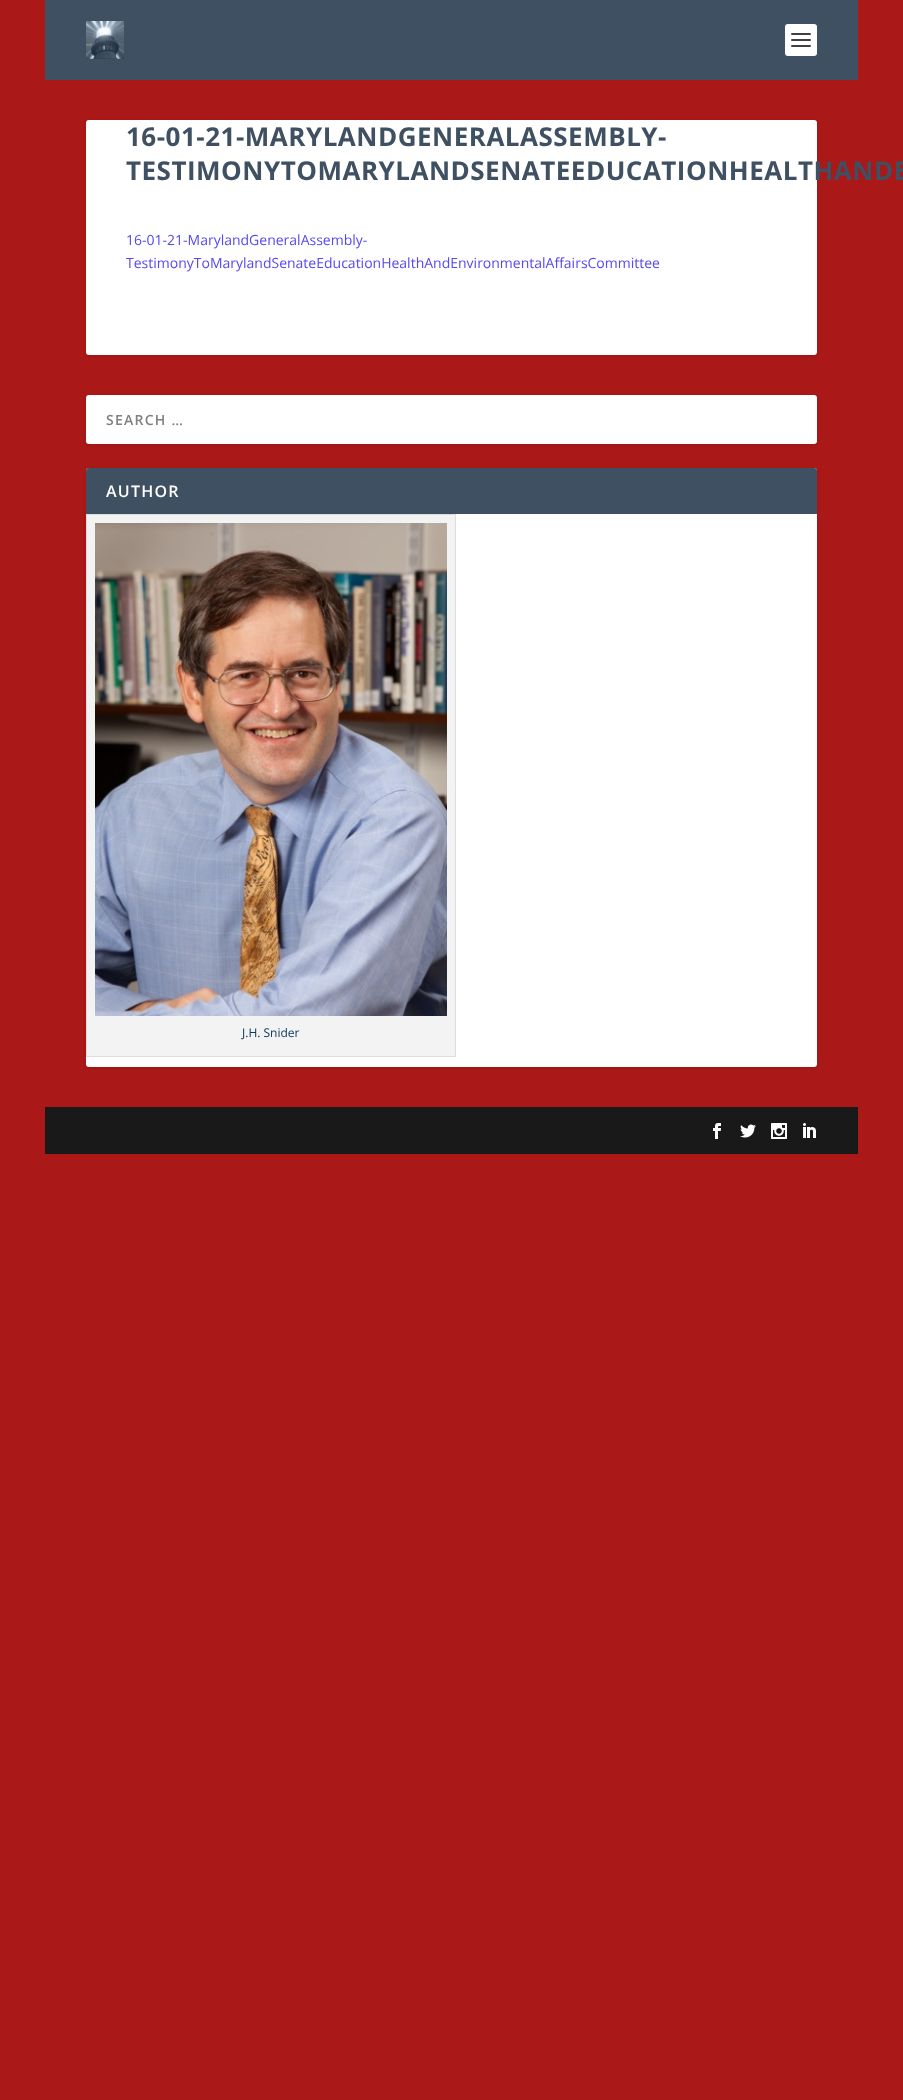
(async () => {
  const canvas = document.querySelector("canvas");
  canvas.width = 903;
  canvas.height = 2100;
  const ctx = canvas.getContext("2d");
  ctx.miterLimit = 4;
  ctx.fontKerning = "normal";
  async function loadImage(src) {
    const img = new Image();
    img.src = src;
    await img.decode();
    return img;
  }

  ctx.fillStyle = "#aa1818";
  ctx.fillRect(0, 0, 903, 2100);
  ctx.fillStyle = "#3e5062";
  ctx.fillRect(45, 0, 813, 80);
  ctx.drawImage(await loadImage("img/1.png"), 86, 21, 38, 38);
  ctx.fillStyle = "#ffffff";
  ctx.beginPath();
  ctx.roundRect(785, 24, 32, 32, 3);
  ctx.fill();
  ctx.fillStyle = "#404040";
  ctx.beginPath();
  ctx.roundRect(791, 33, 20, 2, 1);
  ctx.fill();
  ctx.beginPath();
  ctx.roundRect(791, 39, 20, 2, 1);
  ctx.fill();
  ctx.beginPath();
  ctx.roundRect(791, 45, 20, 2, 1);
  ctx.fill();
  ctx.fillStyle = "rgba(0, 0, 0, 0.1)";
  ctx.filter = "blur(1.5px)";
  ctx.beginPath();
  ctx.roundRect(86, 121, 731, 235, 3);
  ctx.fill();
  ctx.filter = "none";
  ctx.fillStyle = "#ffffff";
  ctx.beginPath();
  ctx.roundRect(86, 120, 731, 235, 3);
  ctx.fill();
  ctx.fillStyle = "rgba(0, 0, 0, 0.1)";
  ctx.filter = "blur(1.5px)";
  ctx.beginPath();
  ctx.roundRect(86, 396, 731, 49, 3);
  ctx.fill();
  ctx.filter = "none";
  ctx.fillStyle = "#ffffff";
  ctx.beginPath();
  ctx.roundRect(86, 395, 731, 49, 3);
  ctx.fill();
  ctx.fillStyle = "rgba(0, 0, 0, 0.1)";
  ctx.filter = "blur(1.5px)";
  ctx.beginPath();
  ctx.roundRect(86, 469, 731, 599, 3);
  ctx.fill();
  ctx.filter = "none";
  ctx.fillStyle = "#ffffff";
  ctx.beginPath();
  ctx.roundRect(86, 468, 731, 599, 3);
  ctx.fill();
  ctx.fillStyle = "#3e5062";
  ctx.beginPath();
  ctx.roundRect(86, 468, 731, 46, [3, 3, 0, 0]);
  ctx.fill();
  ctx.fillStyle = "#f3f3f3";
  ctx.beginPath();
  ctx.rect(86.5, 514.5, 369, 542);
  ctx.fill();
  ctx.strokeStyle = "#dddddd";
  ctx.stroke();
  ctx.drawImage(await loadImage("img/2.png"), 95, 523, 352, 493);
  ctx.fillStyle = "#191919";
  ctx.fillRect(45, 1107, 813, 47);
  ctx.drawImage(await loadImage("img/3.png"), 713, 1123, 8, 16);
  ctx.drawImage(await loadImage("img/4.png"), 740, 1124, 16, 14);
  ctx.drawImage(await loadImage("img/5.png"), 771, 1123, 16, 16);
  ctx.drawImage(await loadImage("img/6.png"), 803, 1123, 13, 15);
  ctx.letterSpacing = "0.5px";
  ctx.font = "bold 26px Open Sans";
  ctx.fillStyle = "#3e5062";
  ctx.fillText("16-01-21-MARYLANDGENERALASSEMBLY-", 126, 146);
  ctx.fillText("TESTIMONYTOMARYLANDSENATEEDUCATIONHEALTHANDE", 126, 180);
  ctx.letterSpacing = "0px";
  ctx.font = "14px Open Sans";
  ctx.fillStyle = "#5648f3";
  ctx.fillText("16-01-21-MarylandGeneralAssembly-", 126, 245);
  ctx.fillText("TestimonyToMarylandSenateEducationHealthAndEnvironmentalAffairsCommittee", 126, 268);
  ctx.letterSpacing = "1.25px";
  ctx.font = "600 14px Open Sans";
  ctx.fillStyle = "#808080";
  ctx.fillText("SEARCH …", 106, 425);
  ctx.font = "600 16px Open Sans";
  ctx.fillStyle = "#ffffff";
  ctx.fillText("AUTHOR", 106, 497);
  ctx.letterSpacing = "0px";
  ctx.font = "12px Open Sans";
  ctx.fillStyle = "#0e3a60";
  ctx.fillText("J.H. Snider", 242, 1037);
})();
